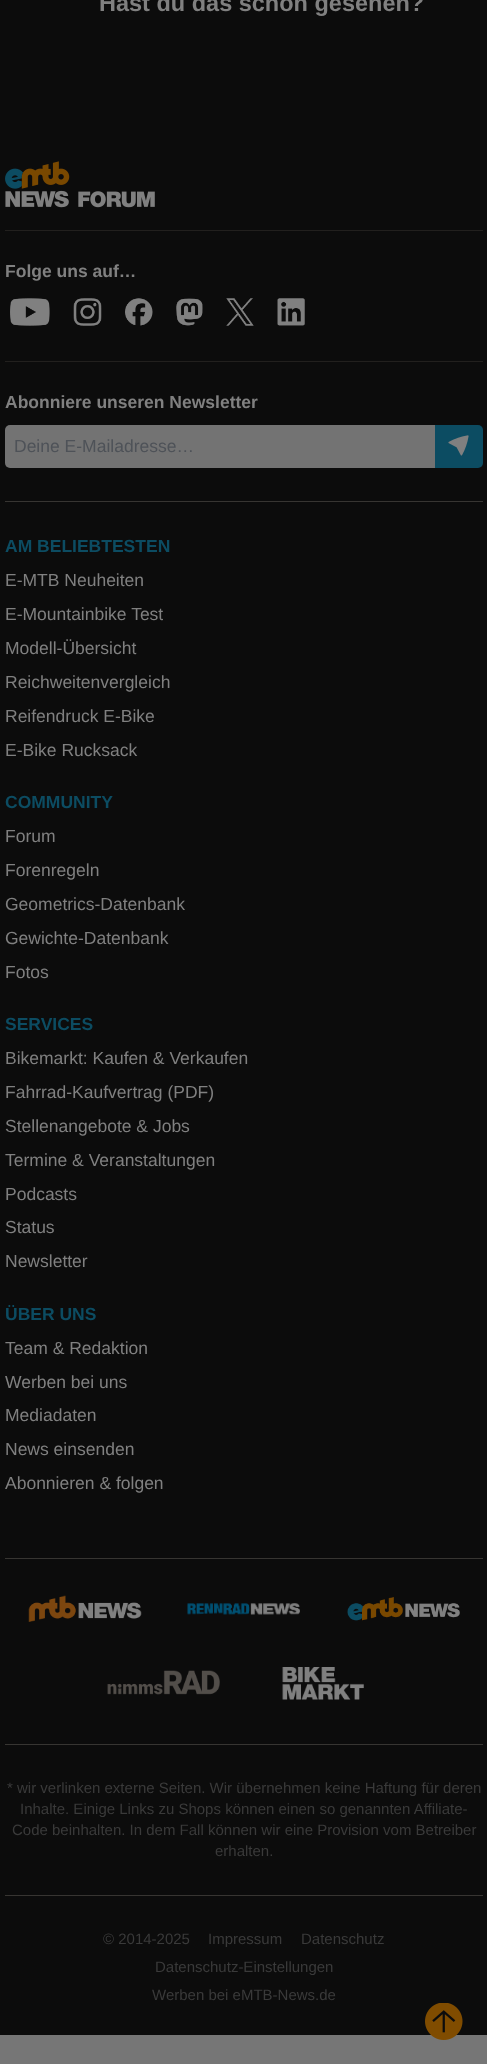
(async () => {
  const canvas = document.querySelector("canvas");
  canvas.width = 487;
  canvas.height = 2064;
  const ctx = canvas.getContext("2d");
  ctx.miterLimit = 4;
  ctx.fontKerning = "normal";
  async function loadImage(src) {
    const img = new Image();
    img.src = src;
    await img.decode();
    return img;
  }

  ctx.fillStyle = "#767676";
  ctx.fillRect(0, 0, 487, 2064);
  for (const [x, y, w, h, color] of [
    [0, 0, 487, 2035, "#0c0c0c"],
    [5, 501, 478, 1, "#373532"],
    [5, 230, 478, 1, "#22201e"],
  ]) {
    ctx.fillStyle = color;
    ctx.fillRect(x, y, w, h);
  }
  ctx.drawImage(await loadImage("img/1.png"), 5, 161, 150, 47);
  ctx.fillRect(5, 361, 478, 1);
  ctx.drawImage(await loadImage("img/2.png"), 10, 298, 40, 28);
  ctx.drawImage(await loadImage("img/3.png"), 73, 298, 29, 28);
  ctx.drawImage(await loadImage("img/4.png"), 125, 298, 28, 28);
  ctx.drawImage(await loadImage("img/5.png"), 176, 298, 27, 28);
  ctx.drawImage(await loadImage("img/6.png"), 226, 298, 28, 28);
  ctx.drawImage(await loadImage("img/7.png"), 277, 298, 28, 28);
  ctx.fillStyle = "#737373";
  ctx.beginPath();
  ctx.roundRect(5, 425, 430, 43, [5, 0, 0, 5]);
  ctx.fill();
  ctx.fillStyle = "#0c4c62";
  ctx.beginPath();
  ctx.roundRect(435, 425, 48, 43, [0, 5, 5, 0]);
  ctx.fill();
  ctx.drawImage(await loadImage("img/8.png"), 448, 435, 21, 21);
  ctx.fillStyle = "#373532";
  ctx.fillRect(5, 1558, 478, 1);
  ctx.fillRect(5, 1744, 478, 1);
  ctx.drawImage(await loadImage("img/9.png"), 28, 1595, 114, 27);
  ctx.drawImage(await loadImage("img/10.png"), 187, 1603, 113, 12);
  ctx.drawImage(await loadImage("img/11.png"), 347, 1597, 113, 24);
  ctx.drawImage(await loadImage("img/12.png"), 107, 1670, 113, 25);
  ctx.drawImage(await loadImage("img/13.png"), 282, 1667, 82, 33);
  ctx.fillRect(5, 1895, 478, 1);
  ctx.drawImage(await loadImage("img/14.png"), 425, 2003, 38, 37);
  ctx.font = "bold 23.5px Liberation Sans";
  ctx.fillStyle = "#808080";
  ctx.fillText("Hast du das schon gesehen?", 99, 11);
  ctx.font = "bold 17.5px Liberation Sans";
  ctx.fillText("Folge uns auf…", 5, 277);
  ctx.fillText("Abonniere unseren Newsletter", 5, 408);
  ctx.font = "17.5px Liberation Sans";
  ctx.fillStyle = "#4e5258";
  ctx.fillText("Deine E-Mailadresse…", 14, 452);
  ctx.font = "bold 17.5px Liberation Sans";
  ctx.fillStyle = "#0c4c62";
  ctx.fillText("AM BELIEBTESTEN", 5, 552);
  ctx.font = "17.5px Liberation Sans";
  ctx.fillStyle = "#808080";
  for (const [text, x, y] of [
    ["E-MTB Neuheiten", 5, 586],
    ["E-Mountainbike Test", 5, 620],
    ["Modell-Übersicht", 5, 654],
    ["Reichweitenvergleich", 5, 688],
    ["Reifendruck E-Bike", 5, 722],
    ["E-Bike Rucksack", 5, 756],
  ]) {
    ctx.fillText(text, x, y);
  }
  ctx.font = "bold 17.5px Liberation Sans";
  ctx.fillStyle = "#0c4c62";
  ctx.fillText("COMMUNITY", 5, 808);
  ctx.font = "17.5px Liberation Sans";
  ctx.fillStyle = "#808080";
  for (const [text, x, y] of [
    ["Forum", 5, 842],
    ["Forenregeln", 5, 876],
    ["Geometrics-Datenbank", 5, 910],
    ["Gewichte-Datenbank", 5, 944],
    ["Fotos", 5, 978],
  ]) {
    ctx.fillText(text, x, y);
  }
  ctx.font = "bold 17.5px Liberation Sans";
  ctx.fillStyle = "#0c4c62";
  ctx.fillText("SERVICES", 5, 1030);
  ctx.font = "17.5px Liberation Sans";
  ctx.fillStyle = "#808080";
  for (const [text, x, y] of [
    ["Bikemarkt: Kaufen & Verkaufen", 5, 1064],
    ["Fahrrad-Kaufvertrag (PDF)", 5, 1098],
    ["Stellenangebote & Jobs", 5, 1132],
    ["Termine & Veranstaltungen", 5, 1166],
    ["Podcasts", 5, 1200],
    ["Status", 5, 1233],
    ["Newsletter", 5, 1267],
  ]) {
    ctx.fillText(text, x, y);
  }
  ctx.font = "bold 17.5px Liberation Sans";
  ctx.fillStyle = "#0c4c62";
  ctx.fillText("ÜBER UNS", 5, 1320);
  ctx.font = "17.5px Liberation Sans";
  ctx.fillStyle = "#808080";
  for (const [text, x, y] of [
    ["Team & Redaktion", 5, 1354],
    ["Werben bei uns", 5, 1388],
    ["Mediadaten", 5, 1421],
    ["News einsenden", 5, 1455],
    ["Abonnieren & folgen", 5, 1489],
  ]) {
    ctx.fillText(text, x, y);
  }
  ctx.font = "15px Liberation Sans";
  ctx.fillStyle = "#3a3a3a";
  for (const [text, x, y] of [
    ["* wir verlinken externe Seiten. Wir übernehmen keine Haftung für deren", 7, 1793],
    ["Inhalte. Einige Links zu Shops können einen so genannten Affiliate-", 20, 1814],
    ["Code beinhalten. In dem Fall können wir eine Provision vom Betreiber", 12, 1835],
    ["erhalten.", 215, 1856],
    ["© 2014-2025", 103, 1944],
    ["Impressum", 208, 1944],
    ["Datenschutz", 301, 1944],
    ["Datenschutz-Einstellungen", 155, 1972],
    ["Werben bei eMTB-News.de", 152, 2000],
  ]) {
    ctx.fillText(text, x, y);
  }
})();
